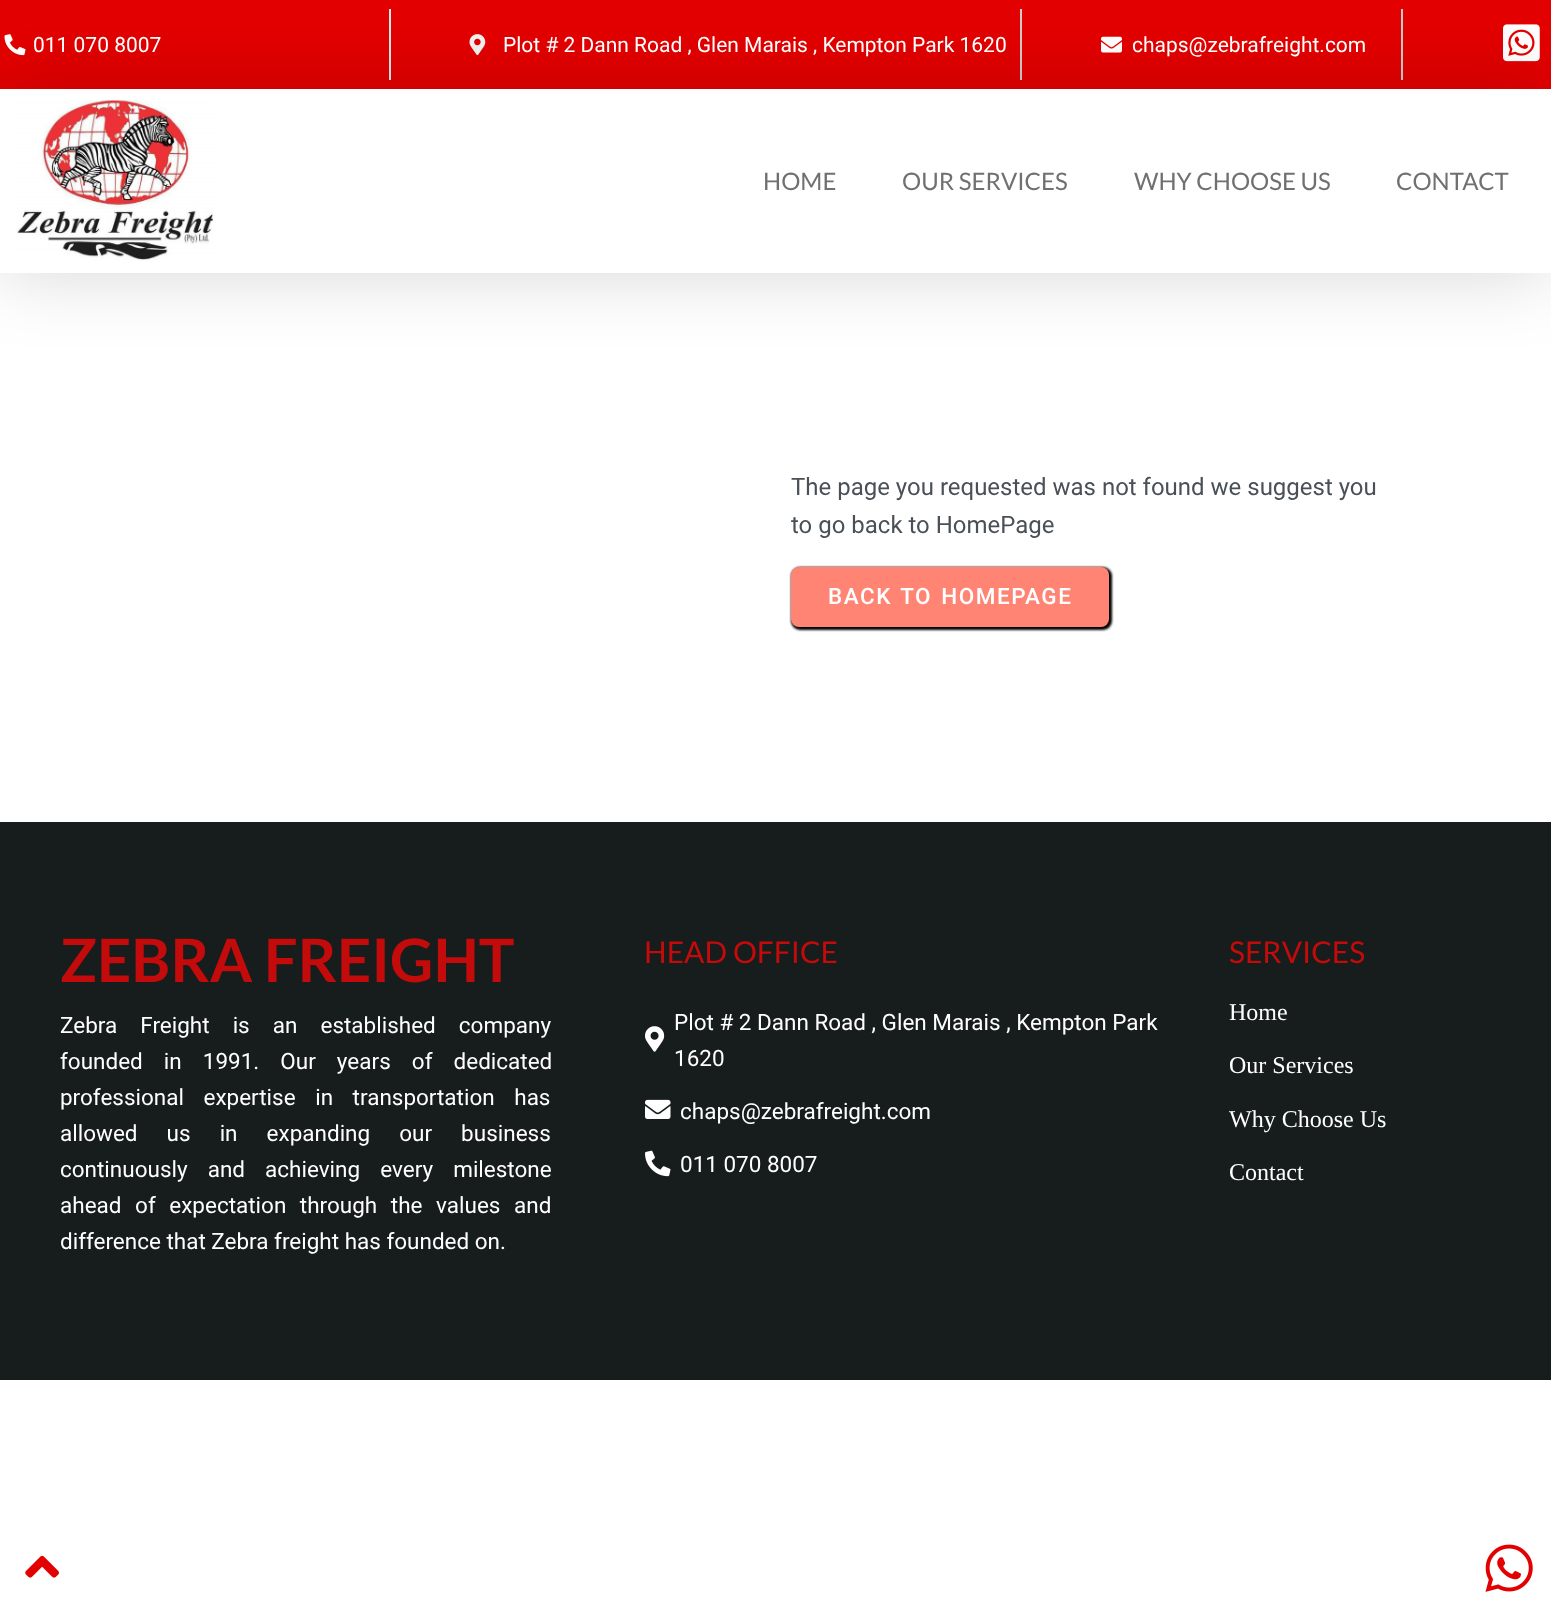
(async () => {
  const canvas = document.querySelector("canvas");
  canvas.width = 1551;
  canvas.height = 1621;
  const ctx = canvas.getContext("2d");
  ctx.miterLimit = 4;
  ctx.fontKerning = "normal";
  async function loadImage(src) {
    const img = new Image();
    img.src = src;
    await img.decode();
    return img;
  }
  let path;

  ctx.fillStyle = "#ffffff";
  ctx.fillRect(0, 0, 1551, 1621);
  ctx.fillStyle = "#e30000";
  ctx.fillRect(0, 0, 1551, 89);
  ctx.drawImage(await loadImage("img/1.png"), 4, 34, 22, 22);
  ctx.fillStyle = "#e9e9e9";
  ctx.fillRect(389, 9, 2, 71);
  ctx.drawImage(await loadImage("img/2.png"), 469, 34, 17, 22);
  ctx.fillStyle = "#cccccc";
  ctx.fillRect(1020, 9, 2, 71);
  ctx.drawImage(await loadImage("img/3.png"), 1101, 36, 21, 17);
  ctx.fillRect(1401, 9, 2, 71);
  ctx.drawImage(await loadImage("img/4.png"), 1503, 24, 37, 38);
  ctx.save();
  path = new Path2D("M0 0H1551V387H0ZM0 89H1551V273H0Z");
  ctx.clip(path, "evenodd");
  ctx.fillStyle = "rgba(0, 0, 0, 0.16)";
  ctx.filter = "blur(37.5px)";
  ctx.beginPath();
  ctx.rect(0, 89, 1551, 184);
  ctx.fill();
  ctx.filter = "none";
  ctx.restore();
  ctx.drawImage(await loadImage("img/5.png"), 16, 100, 199, 161);
  ctx.fillStyle = "#000000";
  ctx.filter = "blur(1px)";
  ctx.beginPath();
  ctx.roundRect(791, 567, 321, 63, 9);
  ctx.fill();
  ctx.filter = "none";
  ctx.fillStyle = "#ff8474";
  ctx.beginPath();
  ctx.roundRect(791, 567, 318, 60, 8);
  ctx.fill();
  ctx.fillStyle = "#171c1c";
  ctx.fillRect(0, 822, 1551, 558);
  ctx.drawImage(await loadImage("img/6.png"), 25, 1555, 34, 23);
  ctx.drawImage(await loadImage("img/7.png"), 645, 1026, 20, 26);
  ctx.drawImage(await loadImage("img/8.png"), 645, 1099, 26, 20);
  ctx.drawImage(await loadImage("img/9.png"), 645, 1150, 26, 27);
  ctx.drawImage(await loadImage("img/10.png"), 1485, 1544, 48, 48);
  ctx.font = "21px Roboto";
  ctx.fillStyle = "#ffffff";
  for (const [text, x, y] of [
    ["011 070 8007", 33, 52],
    ["Plot # 2 Dann Road , Glen Marais , Kempton Park 1620", 503, 52],
    ["chaps@zebrafreight.com", 1132, 52],
  ]) {
    ctx.fillText(text, x, y);
  }
  ctx.font = "24px Lato";
  ctx.fillStyle = "#707070";
  for (const [text, x, y] of [
    ["HOME", 763, 190],
    ["OUR SERVICES", 902, 190],
    ["WHY CHOOSE US", 1134, 190],
    ["CONTACT", 1396, 190],
  ]) {
    ctx.fillText(text, x, y);
  }
  ctx.font = "24px Roboto";
  ctx.fillStyle = "#495057";
  ctx.fillText("The page you requested was not found we suggest you", 791, 495);
  ctx.fillText("to go back to HomePage", 791, 533);
  ctx.letterSpacing = "1.5px";
  ctx.wordSpacing = "2px";
  ctx.font = "500 22.5px Roboto";
  ctx.fillStyle = "#ffffff";
  ctx.fillText("BACK TO HOMEPAGE", 828, 604);
  ctx.letterSpacing = "0px";
  ctx.wordSpacing = "0px";
  ctx.font = "bold 60px Lato";
  ctx.fillStyle = "#c30b0b";
  ctx.fillText("ZEBRA FREIGHT", 60, 982);
  ctx.wordSpacing = "17.5px";
  ctx.font = "22.5px Roboto";
  ctx.fillStyle = "#ffffff";
  ctx.fillText("Zebra Freight is an established company", 60, 1033);
  ctx.wordSpacing = "15.5px";
  ctx.fillText("founded in 1991. Our years of dedicated", 60, 1069);
  ctx.wordSpacing = "14px";
  ctx.fillText("professional expertise in transportation has", 60, 1105);
  ctx.wordSpacing = "23.5px";
  ctx.fillText("allowed us in expanding our business", 60, 1141);
  ctx.wordSpacing = "14.5px";
  ctx.fillText("continuously and achieving every milestone", 60, 1177);
  ctx.wordSpacing = "8px";
  ctx.fillText("ahead of expectation through the values and", 60, 1213);
  ctx.wordSpacing = "0px";
  ctx.fillText("difference that Zebra freight has founded on.", 60, 1249);
  ctx.font = "30px Lato";
  ctx.fillStyle = "#c30b0b";
  ctx.fillText("HEAD OFFICE", 644, 963);
  ctx.font = "22.5px Roboto";
  ctx.fillStyle = "#ffffff";
  for (const [text, x, y] of [
    ["Plot # 2 Dann Road , Glen Marais , Kempton Park", 674, 1030],
    ["1620", 674, 1066],
    ["chaps@zebrafreight.com", 680, 1119],
    ["011 070 8007", 680, 1172],
  ]) {
    ctx.fillText(text, x, y);
  }
  ctx.font = "30px Lato";
  ctx.fillStyle = "#c30b0b";
  ctx.fillText("SERVICES", 1229, 963);
  ctx.font = "24px Liberation Serif";
  ctx.fillStyle = "#ffffff";
  for (const [text, x, y] of [
    ["Home", 1229, 1020],
    ["Our Services", 1229, 1073],
    ["Why Choose Us", 1229, 1127],
    ["Contact", 1229, 1180],
  ]) {
    ctx.fillText(text, x, y);
  }
})();
